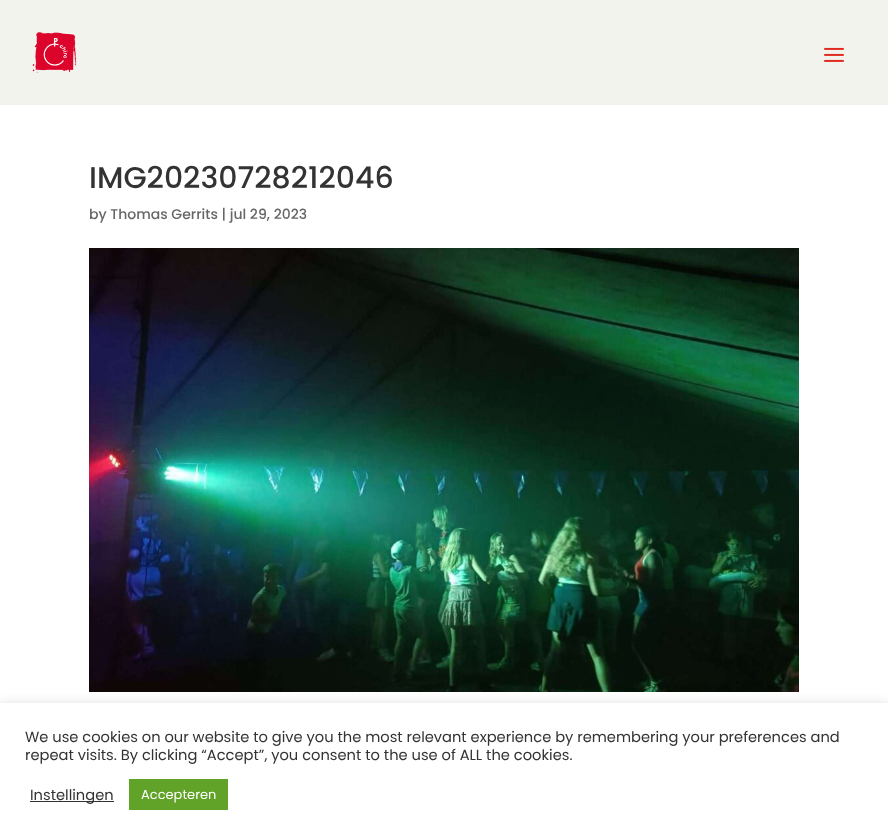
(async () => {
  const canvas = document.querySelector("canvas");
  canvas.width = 888;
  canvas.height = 840;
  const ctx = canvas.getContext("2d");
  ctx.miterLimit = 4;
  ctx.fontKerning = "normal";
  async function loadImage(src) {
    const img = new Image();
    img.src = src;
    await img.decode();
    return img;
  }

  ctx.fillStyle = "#ffffff";
  ctx.fillRect(0, 0, 888, 840);
  ctx.fillStyle = "#f3f3ee";
  ctx.fillRect(0, 0, 888, 105);
  ctx.drawImage(await loadImage("img/1.png"), 32, 32, 45, 41);
  ctx.drawImage(await loadImage("img/2.png"), 824, 47, 20, 15);
  ctx.drawImage(await loadImage("img/3.png"), 89, 248, 710, 444);
  ctx.fillStyle = "rgba(172, 171, 171, 0.3)";
  ctx.filter = "blur(5px)";
  ctx.beginPath();
  ctx.rect(0, 702, 888, 137);
  ctx.fill();
  ctx.filter = "none";
  for (const [x, y, w, h, color] of [
    [0, 703, 888, 137, "#ffffff"],
    [30, 801, 84, 1, "#333333"],
    [129, 779, 99, 31, "#61a229"],
  ]) {
    ctx.fillStyle = color;
    ctx.fillRect(x, y, w, h);
  }
  ctx.font = "500 30px Poppins";
  ctx.fillStyle = "#333333";
  ctx.fillText("IMG20230728212046", 89, 188);
  ctx.font = "500 14px Poppins";
  ctx.fillStyle = "#666666";
  ctx.fillText("by Thomas Gerrits | jul 29, 2023", 89, 219);
  ctx.font = "14.67px Poppins";
  ctx.fillStyle = "#333333";
  for (const [text, x, y] of [
    ["We use cookies on our website to give you the most relevant experience by remembering your preferences and", 25, 742],
    ["repeat visits. By clicking “Accept”, you consent to the use of ALL the cookies.", 25, 760],
    ["Instellingen", 30, 800],
  ]) {
    ctx.fillText(text, x, y);
  }
  ctx.font = "13px Poppins";
  ctx.fillStyle = "#ffffff";
  ctx.fillText("Accepteren", 141, 799);
})();
